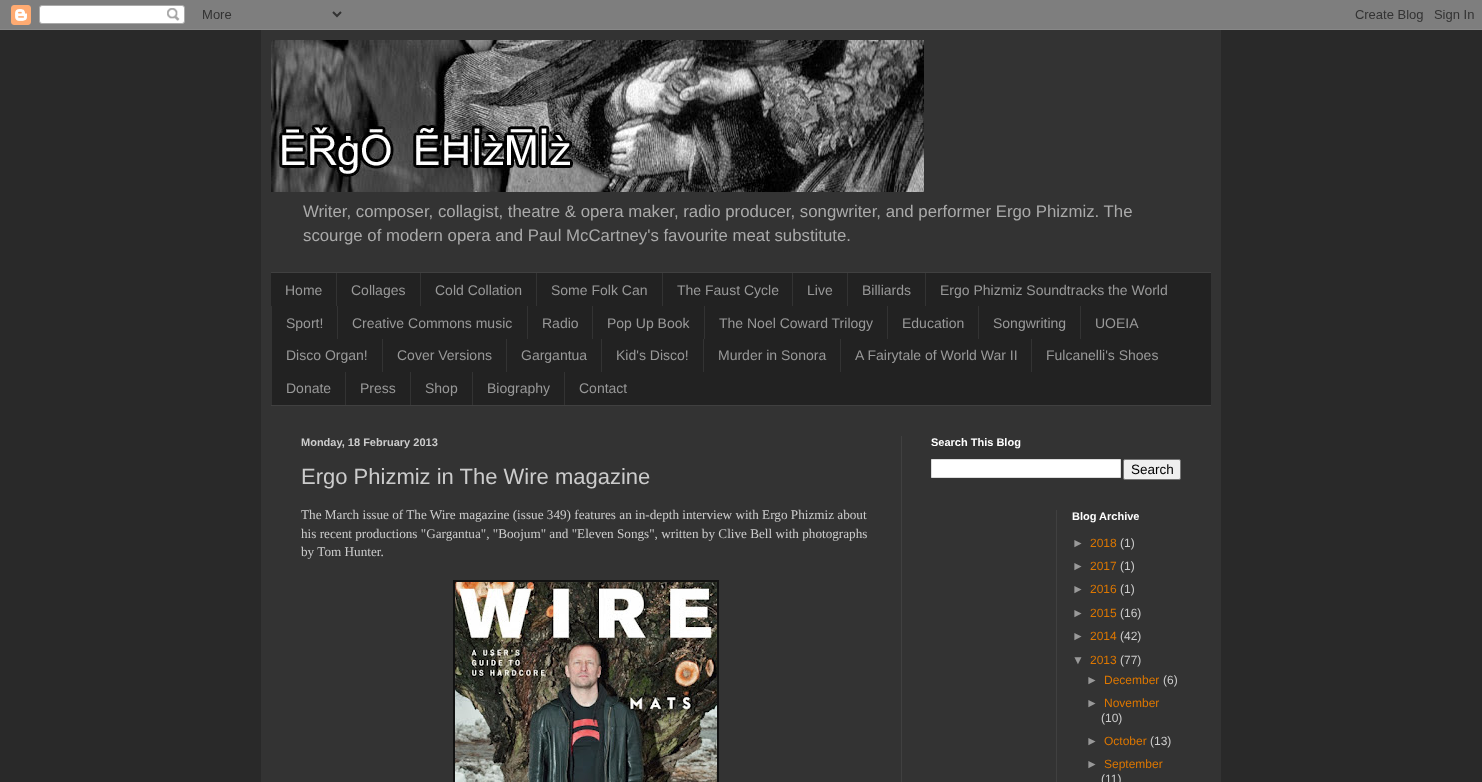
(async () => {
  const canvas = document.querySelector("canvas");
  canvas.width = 1482;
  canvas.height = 782;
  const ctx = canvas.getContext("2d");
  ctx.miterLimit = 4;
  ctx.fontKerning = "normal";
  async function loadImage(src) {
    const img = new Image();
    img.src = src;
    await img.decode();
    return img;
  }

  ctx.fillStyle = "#292929";
  ctx.fillRect(0, 0, 1482, 782);
  ctx.drawImage(await loadImage("img/1.png"), 0, 0, 1482, 30);
  ctx.fillStyle = "#333333";
  ctx.fillRect(261, 30, 960, 752);
  ctx.drawImage(await loadImage("img/2.png"), 271, 40, 653, 152);
  for (const [x, y, w, h, color] of [
    [271, 273, 940, 132, "#222222"],
    [271, 272, 940, 1, "#404040"],
    [271, 405, 940, 1, "#404040"],
    [336, 273, 1, 33, "#333333"],
    [420, 273, 1, 33, "#333333"],
    [536, 273, 1, 33, "#333333"],
    [662, 273, 1, 33, "#333333"],
    [792, 273, 1, 33, "#333333"],
    [847, 273, 1, 33, "#333333"],
    [925, 273, 1, 33, "#333333"],
    [271, 306, 1, 99, "#333333"],
    [337, 306, 1, 33, "#333333"],
    [527, 306, 1, 33, "#333333"],
    [592, 306, 1, 33, "#333333"],
    [704, 306, 1, 33, "#333333"],
    [887, 306, 1, 33, "#333333"],
    [978, 306, 1, 33, "#333333"],
    [1080, 306, 1, 33, "#333333"],
    [382, 339, 1, 33, "#333333"],
    [506, 339, 1, 33, "#333333"],
    [601, 339, 1, 33, "#333333"],
    [703, 339, 1, 33, "#333333"],
    [840, 339, 1, 33, "#333333"],
    [1031, 339, 1, 33, "#333333"],
    [345, 372, 1, 33, "#333333"],
    [410, 372, 1, 33, "#333333"],
    [472, 372, 1, 33, "#333333"],
    [564, 372, 1, 33, "#333333"],
    [901, 436, 1, 346, "#404040"],
    [453, 580, 266, 202, "#111111"],
  ]) {
    ctx.fillStyle = color;
    ctx.fillRect(x, y, w, h);
  }
  ctx.drawImage(await loadImage("img/3.png"), 455, 582, 262, 200);
  ctx.fillStyle = "#ffffff";
  ctx.beginPath();
  ctx.rect(931.5, 459.5, 189, 18);
  ctx.fill();
  ctx.strokeStyle = "#dddddd";
  ctx.stroke();
  ctx.fillStyle = "#efefef";
  ctx.beginPath();
  ctx.roundRect(1123.5, 459.5, 57, 20, 1.5);
  ctx.fill();
  ctx.strokeStyle = "#767676";
  ctx.stroke();
  ctx.fillStyle = "#404040";
  ctx.fillRect(1056, 510, 1, 272);
  ctx.font = "16.8px Liberation Sans";
  ctx.fillStyle = "#aaaaaa";
  ctx.fillText("Writer, composer, collagist, theatre & opera maker, radio producer, songwriter, and performer Ergo Phizmiz. The", 303, 217);
  ctx.fillText("scourge of modern opera and Paul McCartney's favourite meat substitute.", 303, 241);
  ctx.font = "14px Liberation Sans";
  ctx.fillStyle = "#999999";
  for (const [text, x, y] of [
    ["Home", 285, 295],
    ["Collages", 351, 295],
    ["Cold Collation", 435, 295],
    ["Some Folk Can", 551, 295],
    ["The Faust Cycle", 677, 295],
    ["Live", 807, 295],
    ["Billiards", 862, 295],
    ["Ergo Phizmiz Soundtracks the World", 940, 295],
    ["Sport!", 286, 328],
    ["Creative Commons music", 352, 328],
    ["Radio", 542, 328],
    ["Pop Up Book", 607, 328],
    ["The Noel Coward Trilogy", 719, 328],
    ["Education", 902, 328],
    ["Songwriting", 993, 328],
    ["UOEIA", 1095, 328],
    ["Disco Organ!", 286, 360],
    ["Cover Versions", 397, 360],
    ["Gargantua", 521, 360],
    ["Kid's Disco!", 616, 360],
    ["Murder in Sonora", 718, 360],
    ["A Fairytale of World War II", 855, 360],
    ["Fulcanelli's Shoes", 1046, 360],
    ["Donate", 286, 393],
    ["Press", 360, 393],
    ["Shop", 425, 393],
    ["Biography", 487, 393],
    ["Contact", 579, 393],
  ]) {
    ctx.fillText(text, x, y);
  }
  ctx.font = "bold 11px Liberation Sans";
  ctx.fillStyle = "#cccccc";
  ctx.fillText("Monday, 18 February 2013", 301, 446);
  ctx.font = "22px Liberation Sans";
  ctx.fillText("Ergo Phizmiz in The Wire magazine", 301, 484);
  ctx.font = "13.2px Liberation Serif";
  for (const [text, x, y] of [
    ["The March issue of The Wire magazine (issue 349) features an in-depth interview with Ergo Phizmiz about", 301, 519],
    ["his recent productions \"Gargantua\", \"Boojum\" and \"Eleven Songs\", written by Clive Bell with photographs", 301, 538],
    ["by Tom Hunter.", 301, 556],
  ]) {
    ctx.fillText(text, x, y);
  }
  ctx.font = "bold 11px Liberation Sans";
  ctx.fillStyle = "#ffffff";
  ctx.fillText("Search This Blog", 931, 446);
  ctx.font = "13.5px Liberation Sans";
  ctx.fillStyle = "#000000";
  ctx.fillText("Search", 1131, 474);
  ctx.font = "bold 11px Liberation Sans";
  ctx.fillStyle = "#ffffff";
  ctx.fillText("Blog Archive", 1072, 520);
  ctx.font = "12px Liberation Sans";
  ctx.fillStyle = "#999999";
  ctx.fillText("►", 1072, 547);
  ctx.fillStyle = "#dd7700";
  ctx.fillText("2018", 1090, 547);
  ctx.fillStyle = "#cccccc";
  ctx.fillText("(1)", 1120, 547);
  ctx.fillStyle = "#999999";
  ctx.fillText("►", 1072, 570);
  ctx.fillStyle = "#dd7700";
  ctx.fillText("2017", 1090, 570);
  ctx.fillStyle = "#cccccc";
  ctx.fillText("(1)", 1120, 570);
  ctx.fillStyle = "#999999";
  ctx.fillText("►", 1072, 593);
  ctx.fillStyle = "#dd7700";
  ctx.fillText("2016", 1090, 593);
  ctx.fillStyle = "#cccccc";
  ctx.fillText("(1)", 1120, 593);
  ctx.fillStyle = "#999999";
  ctx.fillText("►", 1072, 617);
  ctx.fillStyle = "#dd7700";
  ctx.fillText("2015", 1090, 617);
  ctx.fillStyle = "#cccccc";
  ctx.fillText("(16)", 1120, 617);
  ctx.fillStyle = "#999999";
  ctx.fillText("►", 1072, 640);
  ctx.fillStyle = "#dd7700";
  ctx.fillText("2014", 1090, 640);
  ctx.fillStyle = "#cccccc";
  ctx.fillText("(42)", 1120, 640);
  ctx.fillStyle = "#999999";
  ctx.fillText("▼", 1072, 664);
  ctx.fillStyle = "#dd7700";
  ctx.fillText("2013", 1090, 664);
  ctx.fillStyle = "#cccccc";
  ctx.fillText("(77)", 1120, 664);
  ctx.fillStyle = "#999999";
  ctx.fillText("►", 1086, 684);
  ctx.fillStyle = "#dd7700";
  ctx.fillText("December", 1104, 684);
  ctx.fillStyle = "#cccccc";
  ctx.fillText("(6)", 1163, 684);
  ctx.fillStyle = "#999999";
  ctx.fillText("►", 1086, 707);
  ctx.fillStyle = "#dd7700";
  ctx.fillText("November", 1104, 707);
  ctx.fillStyle = "#cccccc";
  ctx.fillText("(10)", 1101, 722);
  ctx.fillStyle = "#999999";
  ctx.fillText("►", 1086, 745);
  ctx.fillStyle = "#dd7700";
  ctx.fillText("October", 1104, 745);
  ctx.fillStyle = "#cccccc";
  ctx.fillText("(13)", 1150, 745);
  ctx.fillStyle = "#999999";
  ctx.fillText("►", 1086, 768);
  ctx.fillStyle = "#dd7700";
  ctx.fillText("September", 1104, 768);
  ctx.fillStyle = "#cccccc";
  ctx.fillText("(11)", 1101, 783);
})();
